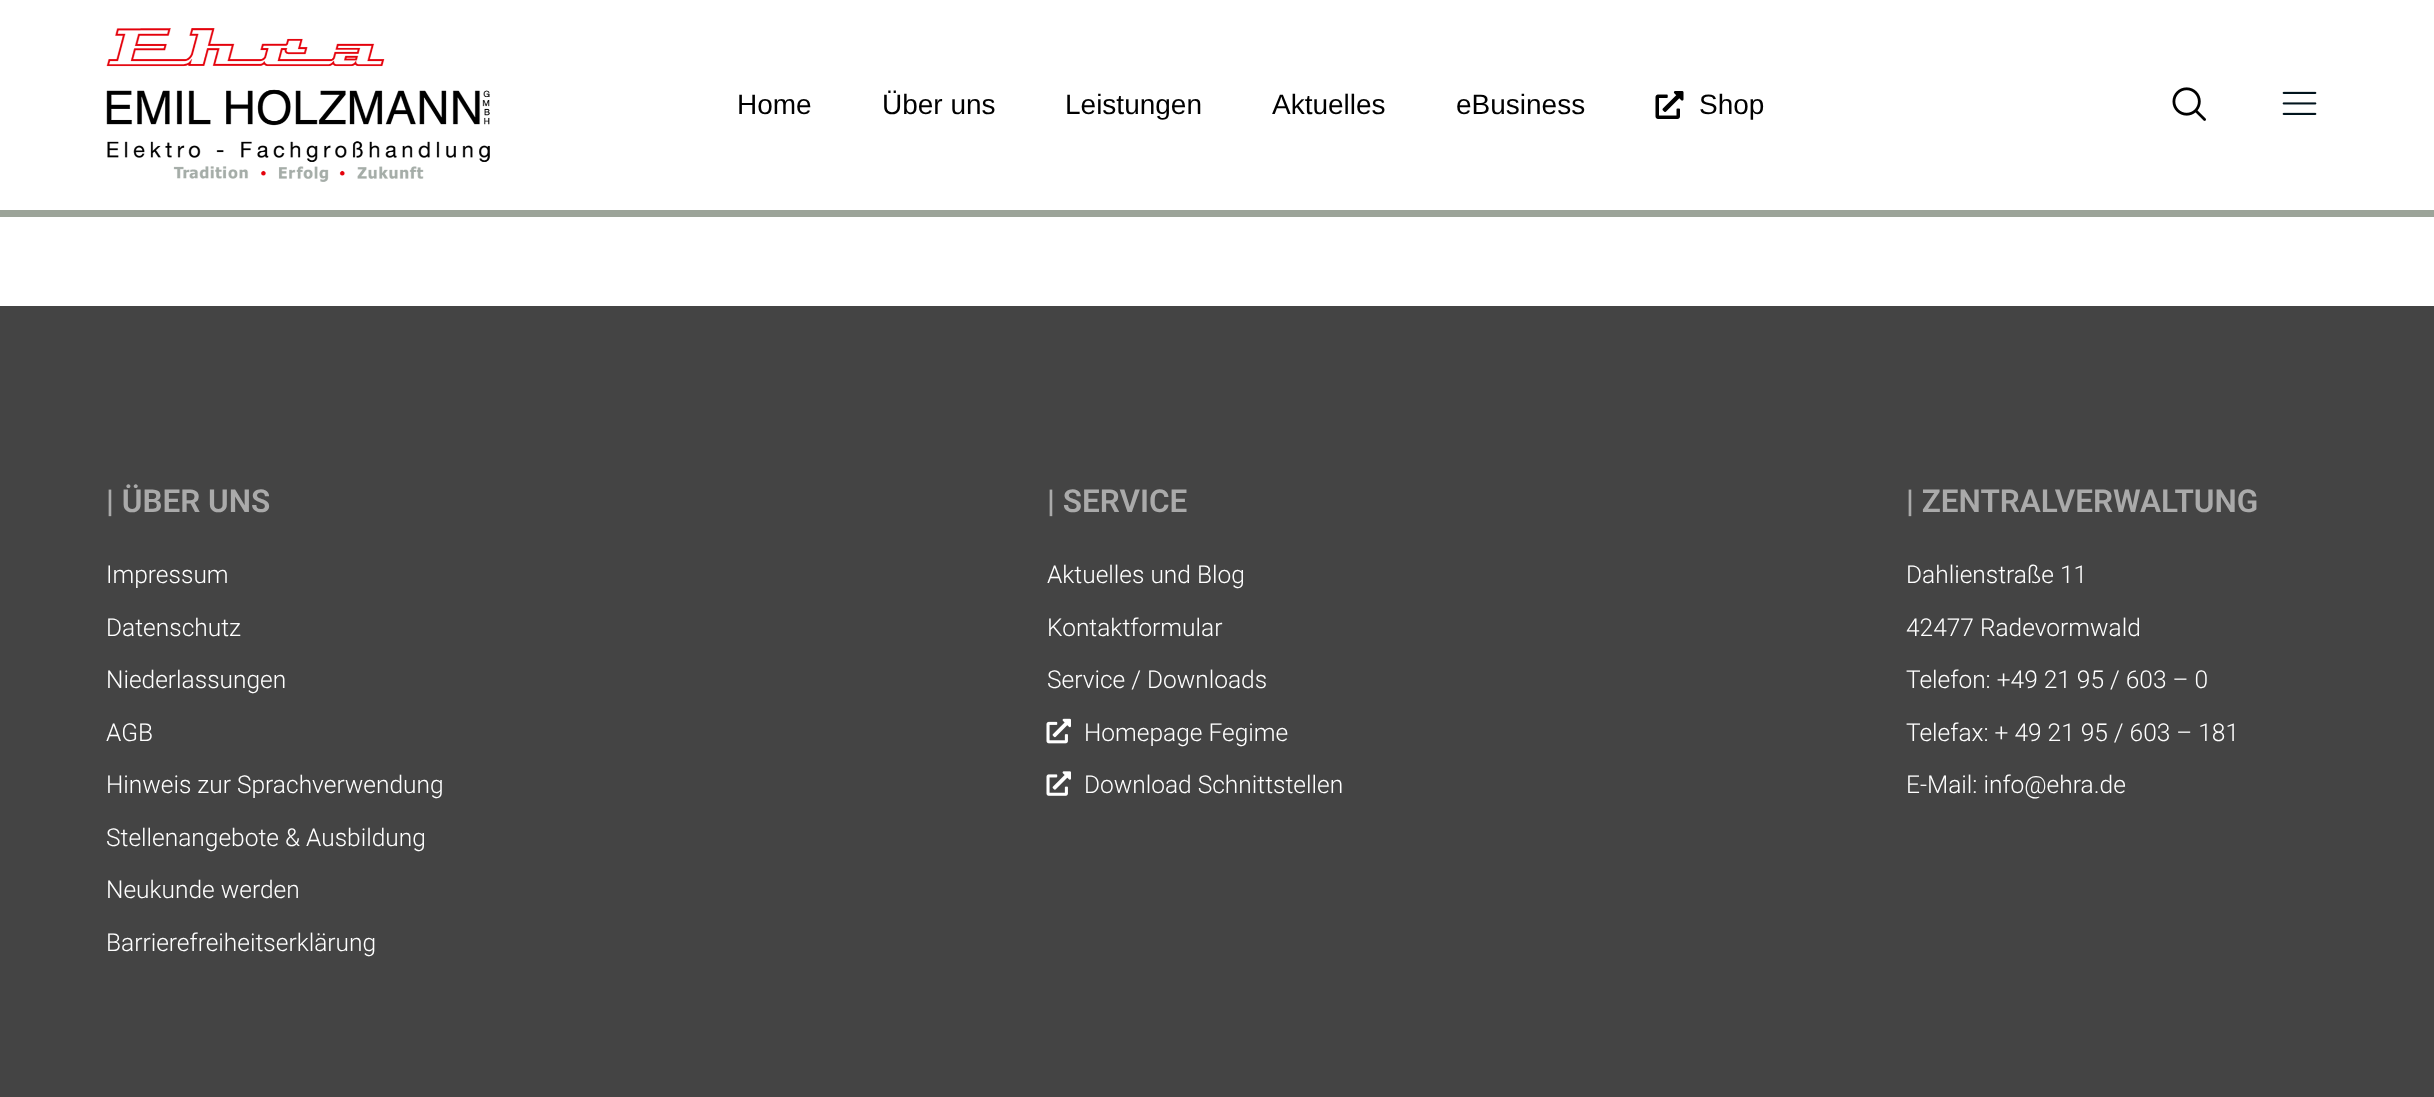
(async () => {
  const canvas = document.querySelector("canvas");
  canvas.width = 2434;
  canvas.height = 1097;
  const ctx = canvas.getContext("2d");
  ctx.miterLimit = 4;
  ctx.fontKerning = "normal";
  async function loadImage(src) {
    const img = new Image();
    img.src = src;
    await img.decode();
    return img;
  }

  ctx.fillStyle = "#ffffff";
  ctx.fillRect(0, 0, 2434, 1097);
  ctx.fillStyle = "#9ca499";
  ctx.fillRect(0, 210, 2434, 7);
  ctx.drawImage(await loadImage("img/1.png"), 106, 28, 384, 154);
  ctx.drawImage(await loadImage("img/2.png"), 1655, 91, 29, 28);
  ctx.drawImage(await loadImage("img/3.png"), 2172, 87, 34, 34);
  ctx.drawImage(await loadImage("img/4.png"), 2282, 91, 35, 24);
  ctx.fillStyle = "#444444";
  ctx.fillRect(0, 306, 2434, 791);
  ctx.drawImage(await loadImage("img/5.png"), 1046, 718, 25, 26);
  ctx.drawImage(await loadImage("img/6.png"), 1046, 771, 25, 25);
  ctx.font = "28px Liberation Sans";
  ctx.fillStyle = "#000000";
  for (const [text, x, y] of [
    ["Home", 737, 114],
    ["Über uns", 882, 114],
    ["Leistungen", 1065, 114],
    ["Aktuelles", 1272, 114],
    ["eBusiness", 1456, 114],
    ["Shop", 1699, 114],
  ]) {
    ctx.fillText(text, x, y);
  }
  ctx.font = "600 31.5px Roboto";
  ctx.fillStyle = "#aaaaaa";
  ctx.fillText("| ÜBER UNS", 106, 512);
  ctx.font = "300 24.5px Roboto";
  ctx.fillStyle = "#ffffff";
  for (const [text, x, y] of [
    ["Impressum", 106, 583],
    ["Datenschutz", 106, 636],
    ["Niederlassungen", 106, 688],
    ["AGB", 106, 741],
    ["Hinweis zur Sprachverwendung", 106, 793],
    ["Stellenangebote & Ausbildung", 106, 846],
    ["Neukunde werden", 106, 898],
    ["Barrierefreiheitserklärung", 106, 951],
  ]) {
    ctx.fillText(text, x, y);
  }
  ctx.font = "600 31.5px Roboto";
  ctx.fillStyle = "#aaaaaa";
  ctx.fillText("| SERVICE", 1047, 512);
  ctx.font = "300 24.5px Roboto";
  ctx.fillStyle = "#ffffff";
  for (const [text, x, y] of [
    ["Aktuelles und Blog", 1047, 583],
    ["Kontaktformular", 1047, 636],
    ["Service / Downloads", 1047, 688],
    ["Homepage Fegime", 1084, 741],
    ["Download Schnittstellen", 1084, 793],
  ]) {
    ctx.fillText(text, x, y);
  }
  ctx.font = "600 31.5px Roboto";
  ctx.fillStyle = "#aaaaaa";
  ctx.fillText("| ZENTRALVERWALTUNG", 1906, 512);
  ctx.font = "300 24.5px Roboto";
  ctx.fillStyle = "#ffffff";
  for (const [text, x, y] of [
    ["Dahlienstraße 11", 1906, 583],
    ["42477 Radevormwald", 1906, 636],
    ["Telefon: +49 21 95 / 603 – 0", 1906, 688],
    ["Telefax: + 49 21 95 / 603 – 181", 1906, 741],
    ["E-Mail: info@ehra.de", 1906, 793],
  ]) {
    ctx.fillText(text, x, y);
  }
})();
